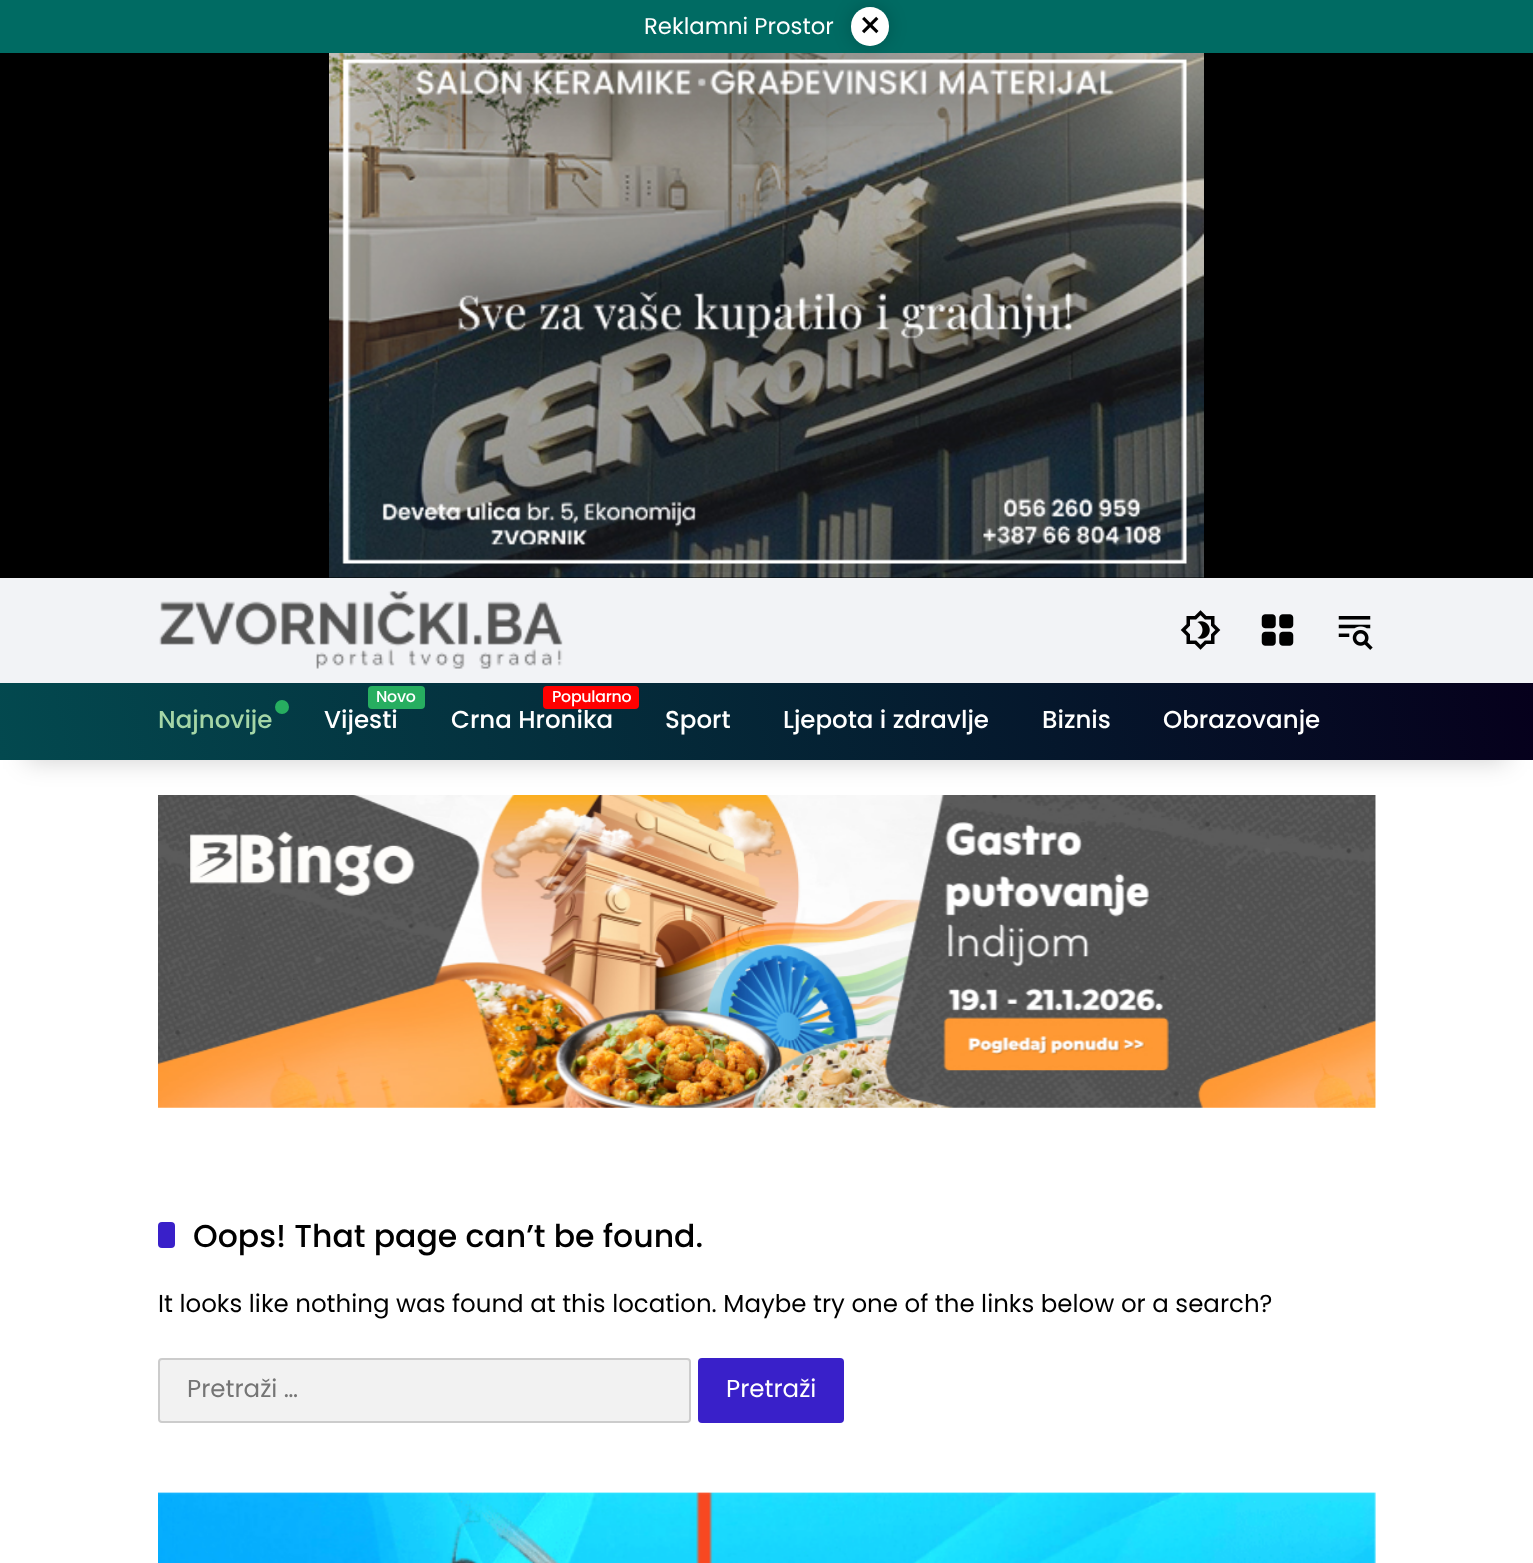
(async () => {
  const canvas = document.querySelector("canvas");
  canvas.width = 1533;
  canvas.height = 1563;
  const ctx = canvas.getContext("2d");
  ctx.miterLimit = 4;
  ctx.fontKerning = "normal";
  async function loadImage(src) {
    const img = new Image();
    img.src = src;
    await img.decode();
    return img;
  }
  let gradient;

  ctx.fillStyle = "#000000";
  ctx.fillRect(0, 0, 1533, 1563);
  ctx.fillStyle = "#006b63";
  ctx.fillRect(0, 0, 1533, 53);
  ctx.drawImage(await loadImage("img/1.png"), 329, 53, 875, 525);
  ctx.fillStyle = "rgba(0, 0, 0, 0.2)";
  ctx.filter = "blur(9px)";
  ctx.beginPath();
  ctx.roundRect(851, 7, 38, 39, 19);
  ctx.fill();
  ctx.filter = "none";
  ctx.fillStyle = "#ffffff";
  ctx.beginPath();
  ctx.roundRect(851, 7, 38, 39, 19);
  ctx.fill();
  ctx.fillRect(0, 760, 1533, 803);
  ctx.fillStyle = "#f2f3f6";
  ctx.fillRect(0, 578, 1533, 105);
  ctx.drawImage(await loadImage("img/2.png"), 159, 591, 404, 78);
  ctx.drawImage(await loadImage("img/3.png"), 1180, 610, 41, 40);
  ctx.drawImage(await loadImage("img/4.png"), 1261, 614, 33, 32);
  ctx.drawImage(await loadImage("img/5.png"), 1338, 616, 35, 34);
  ctx.drawImage(await loadImage("img/6.png"), 158, 795, 1218, 313);
  ctx.fillStyle = "rgba(0, 0, 0, 0.2)";
  ctx.filter = "blur(13px)";
  ctx.beginPath();
  ctx.rect(26, 735, 1481, 25);
  ctx.fill();
  ctx.filter = "none";
  gradient = ctx.createLinearGradient(17, 853, 1516, 589);
  gradient.addColorStop(0, "#03494f");
  gradient.addColorStop(1, "#06001c");
  ctx.fillStyle = gradient;
  ctx.fillRect(0, 683, 1533, 77);
  ctx.fillStyle = "#27ae60";
  ctx.beginPath();
  ctx.arc(282, 707, 7, 0, Math.PI * 2);
  ctx.fill();
  ctx.beginPath();
  ctx.roundRect(368, 686, 57, 23, 4);
  ctx.fill();
  ctx.fillStyle = "#ff0000";
  ctx.beginPath();
  ctx.roundRect(543, 686, 96, 23, 4);
  ctx.fill();
  ctx.fillStyle = "#3920c9";
  ctx.beginPath();
  ctx.roundRect(158, 1222, 17, 26, 4);
  ctx.fill();
  ctx.fillStyle = "#f2f2f2";
  ctx.beginPath();
  ctx.roundRect(159, 1359, 531, 63, 3);
  ctx.fill();
  ctx.strokeStyle = "#cccccc";
  ctx.lineWidth = 2;
  ctx.stroke();
  ctx.fillStyle = "#3920c9";
  ctx.beginPath();
  ctx.roundRect(698, 1358, 146, 65, 4);
  ctx.fill();
  ctx.drawImage(await loadImage("img/7.png"), 158, 1492, 1218, 71);
  ctx.font = "22.75px Poppins";
  ctx.fillStyle = "#ffffff";
  ctx.fillText("Reklamni Prostor", 644, 34);
  ctx.font = "38px Poppins";
  ctx.fillStyle = "#000000";
  ctx.fillText("×", 858, 39);
  ctx.font = "500 24.5px Poppins";
  ctx.fillStyle = "#a5d6a7";
  ctx.fillText("Najnovije", 158, 728);
  ctx.letterSpacing = "-0.25px";
  ctx.font = "500 15.75px Poppins";
  ctx.fillStyle = "#ffffff";
  ctx.fillText("Novo", 376, 702);
  ctx.letterSpacing = "0px";
  ctx.font = "500 24.5px Poppins";
  ctx.fillText("Vijesti", 324, 728);
  ctx.letterSpacing = "-0.25px";
  ctx.font = "500 15.75px Poppins";
  ctx.fillText("Popularno", 552, 702);
  ctx.letterSpacing = "0px";
  ctx.font = "500 24.5px Poppins";
  for (const [text, x, y] of [
    ["Crna Hronika", 451, 728],
    ["Sport", 665, 728],
    ["Ljepota i zdravlje", 783, 728],
    ["Biznis", 1042, 728],
    ["Obrazovanje", 1163, 728],
  ]) {
    ctx.fillText(text, x, y);
  }
  ctx.font = "500 31.5px Poppins";
  ctx.fillStyle = "#000000";
  ctx.fillText("Oops! That page can’t be found.", 193, 1247);
  ctx.font = "24.5px Poppins";
  ctx.fillText("It looks like nothing was found at this location. Maybe try one of the links below or a search?", 158, 1312);
  ctx.fillStyle = "#757575";
  ctx.fillText("Pretraži …", 187, 1397);
  ctx.fillStyle = "#ffffff";
  ctx.fillText("Pretraži", 726, 1397);
})();
